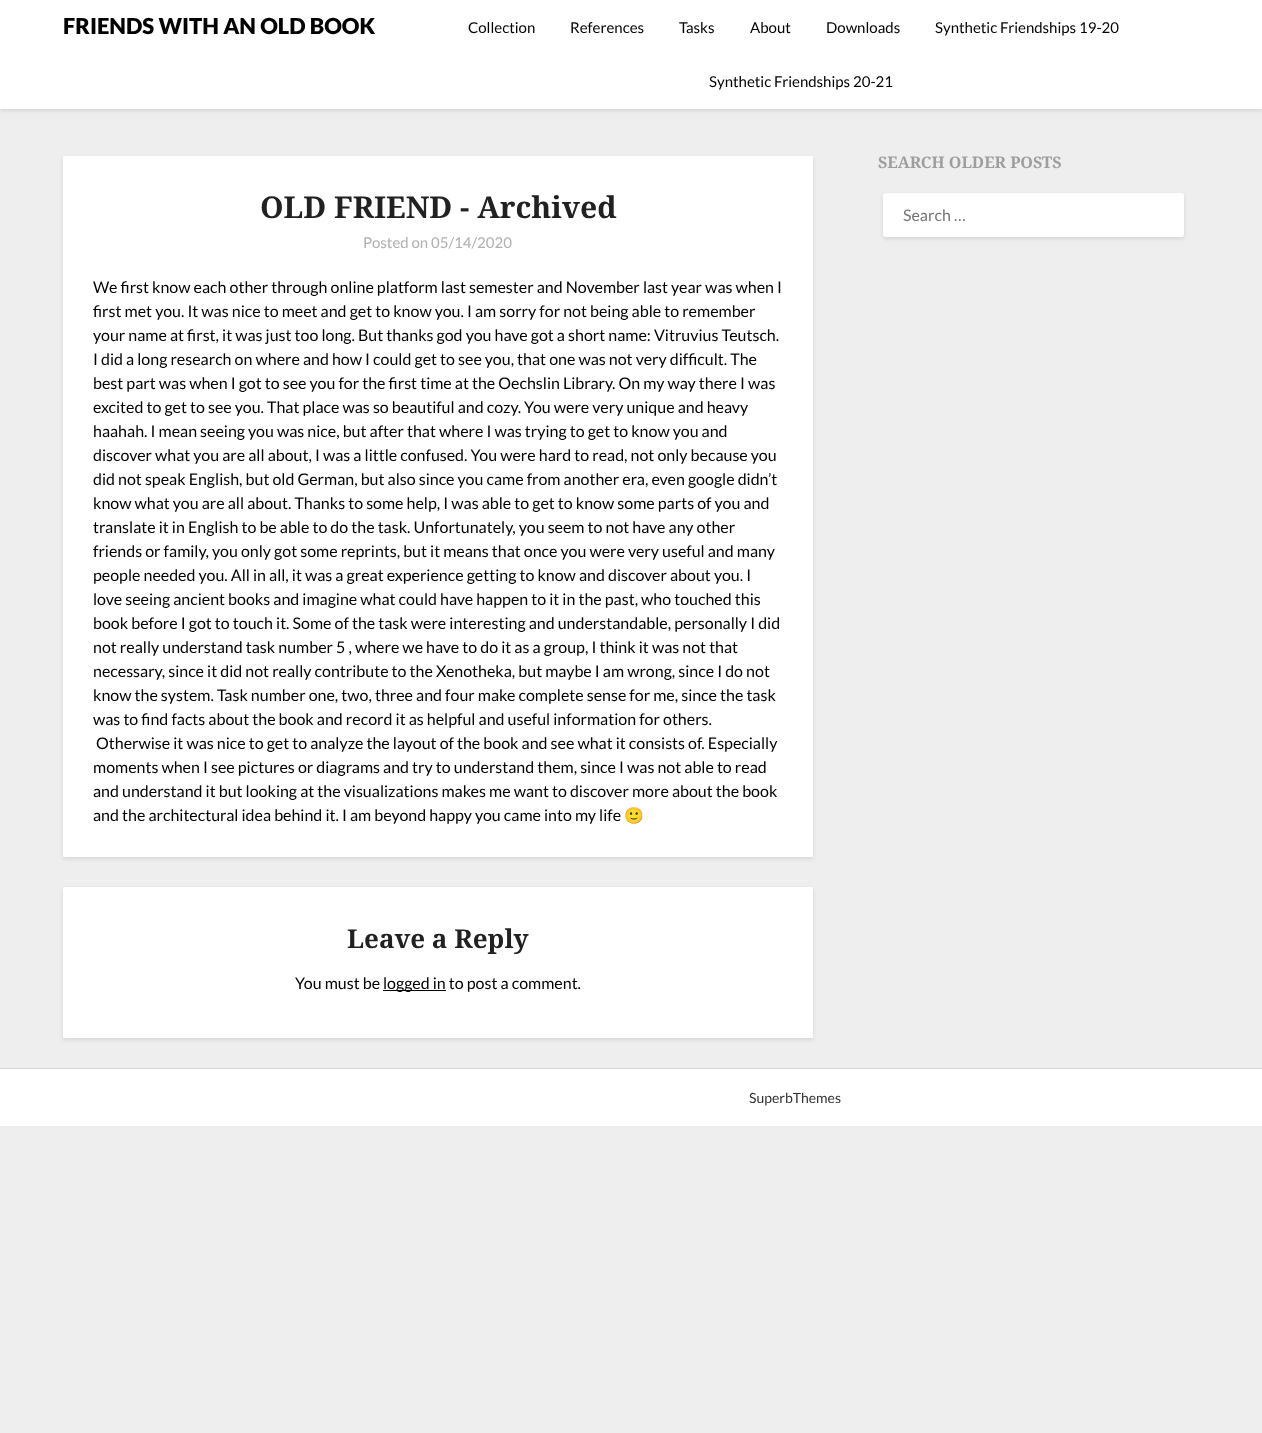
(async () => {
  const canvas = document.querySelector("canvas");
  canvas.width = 1262;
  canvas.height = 1433;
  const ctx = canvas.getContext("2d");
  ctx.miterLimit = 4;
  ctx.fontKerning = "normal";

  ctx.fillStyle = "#eeeeee";
  ctx.fillRect(0, 0, 1262, 1433);
  ctx.fillStyle = "rgba(0, 0, 0, 0.1)";
  ctx.filter = "blur(2px)";
  ctx.beginPath();
  ctx.rect(0, 2, 1262, 109);
  ctx.fill();
  ctx.filter = "none";
  ctx.fillStyle = "#ffffff";
  ctx.fillRect(0, 0, 1262, 109);
  ctx.fillStyle = "rgba(0, 0, 0, 0.1)";
  ctx.filter = "blur(2px)";
  ctx.beginPath();
  ctx.roundRect(63, 158, 750, 701, 1);
  ctx.fill();
  ctx.filter = "none";
  ctx.fillStyle = "#ffffff";
  ctx.beginPath();
  ctx.roundRect(63, 156, 750, 701, 1);
  ctx.fill();
  ctx.fillStyle = "rgba(0, 0, 0, 0.1)";
  ctx.filter = "blur(2px)";
  ctx.beginPath();
  ctx.roundRect(63, 889, 750, 151, 1);
  ctx.fill();
  ctx.filter = "none";
  ctx.fillStyle = "#ffffff";
  ctx.beginPath();
  ctx.roundRect(63, 887, 750, 151, 1);
  ctx.fill();
  ctx.fillStyle = "#000000";
  ctx.fillRect(383, 990, 63, 1);
  ctx.fillStyle = "rgba(0, 0, 0, 0.1)";
  ctx.filter = "blur(2px)";
  ctx.beginPath();
  ctx.roundRect(883, 195, 301, 44, 3);
  ctx.fill();
  ctx.filter = "none";
  ctx.fillStyle = "#ffffff";
  ctx.beginPath();
  ctx.roundRect(883, 193, 301, 44, 3);
  ctx.fill();
  ctx.fillRect(0, 1069, 1262, 57);
  ctx.fillStyle = "#d6d6d6";
  ctx.fillRect(0, 1068, 1262, 1);
  ctx.font = "900 22px Lato";
  ctx.fillStyle = "#000000";
  ctx.fillText("FRIENDS WITH AN OLD BOOK", 63, 34);
  ctx.font = "15px Lato";
  for (const [text, x, y] of [
    ["Collection", 468, 33],
    ["References", 570, 33],
    ["Tasks", 679, 33],
    ["About", 750, 33],
    ["Downloads", 826, 33],
    ["Synthetic Friendships 19-20", 935, 33],
    ["Synthetic Friendships 20-21", 709, 87],
  ]) {
    ctx.fillText(text, x, y);
  }
  ctx.font = "bold 30px Noto Serif";
  ctx.fillStyle = "#212121";
  ctx.fillText("OLD FRIEND - Archived", 260, 218);
  ctx.font = "15px Lato";
  ctx.fillStyle = "#afafaf";
  ctx.fillText("Posted on 05/14/2020", 363, 248);
  ctx.font = "16px Lato";
  ctx.fillStyle = "#000000";
  for (const [text, x, y] of [
    ["We first know each other through online platform last semester and November last year was when I", 93, 293],
    ["first met you. It was nice to meet and get to know you. I am sorry for not being able to remember", 93, 317],
    ["your name at first, it was just too long. But thanks god you have got a short name: Vitruvius Teutsch.", 93, 341],
    ["I did a long research on where and how I could get to see you, that one was not very difficult. The", 93, 365],
    ["best part was when I got to see you for the first time at the Oechslin Library. On my way there I was", 93, 389],
    ["excited to get to see you. That place was so beautiful and cozy. You were very unique and heavy", 93, 413],
    ["haahah. I mean seeing you was nice, but after that where I was trying to get to know you and", 93, 437],
    ["discover what you are all about, I was a little confused. You were hard to read, not only because you", 93, 461],
    ["did not speak English, but old German, but also since you came from another era, even google didn’t", 93, 485],
    ["know what you are all about. Thanks to some help, I was able to get to know some parts of you and", 93, 509],
    ["translate it in English to be able to do the task. Unfortunately, you seem to not have any other", 93, 533],
    ["friends or family, you only got some reprints, but it means that once you were very useful and many", 93, 557],
    ["people needed you. All in all, it was a great experience getting to know and discover about you. I", 93, 581],
    ["love seeing ancient books and imagine what could have happen to it in the past, who touched this", 93, 605],
    ["book before I got to touch it. Some of the task were interesting and understandable, personally I did", 93, 629],
    ["not really understand task number 5 , where we have to do it as a group, I think it was not that", 93, 653],
    ["necessary, since it did not really contribute to the Xenotheka, but maybe I am wrong, since I do not", 93, 677],
    ["know the system. Task number one, two, three and four make complete sense for me, since the task", 93, 701],
    ["was to find facts about the book and record it as helpful and useful information for others.", 93, 725],
    ["Otherwise it was nice to get to analyze the layout of the book and see what it consists of. Especially", 96, 749],
    ["moments when I see pictures or diagrams and try to understand them, since I was not able to read", 93, 773],
    ["and understand it but looking at the visualizations makes me want to discover more about the book", 93, 797],
    ["and the architectural idea behind it. I am beyond happy you came into my life", 93, 821],
  ]) {
    ctx.fillText(text, x, y);
  }
  ctx.font = "16px Noto Color Emoji";
  ctx.fillText("🙂", 624, 821);
  ctx.font = "bold 26px Noto Serif";
  ctx.fillStyle = "#212121";
  ctx.fillText("Leave a Reply", 347, 948);
  ctx.font = "16px Lato";
  ctx.fillStyle = "#000000";
  ctx.fillText("You must be", 295, 989);
  ctx.fillText("logged in to post a comment.", 383, 989);
  ctx.font = "bold 16px Noto Serif";
  ctx.fillStyle = "#9e9e9e";
  ctx.fillText("SEARCH OLDER POSTS", 878, 168);
  ctx.font = "16px Lato";
  ctx.fillStyle = "#757575";
  ctx.fillText("Search …", 903, 221);
  ctx.font = "14px Lato";
  ctx.fillStyle = "#333333";
  ctx.fillText("SuperbThemes", 749, 1103);
})();
